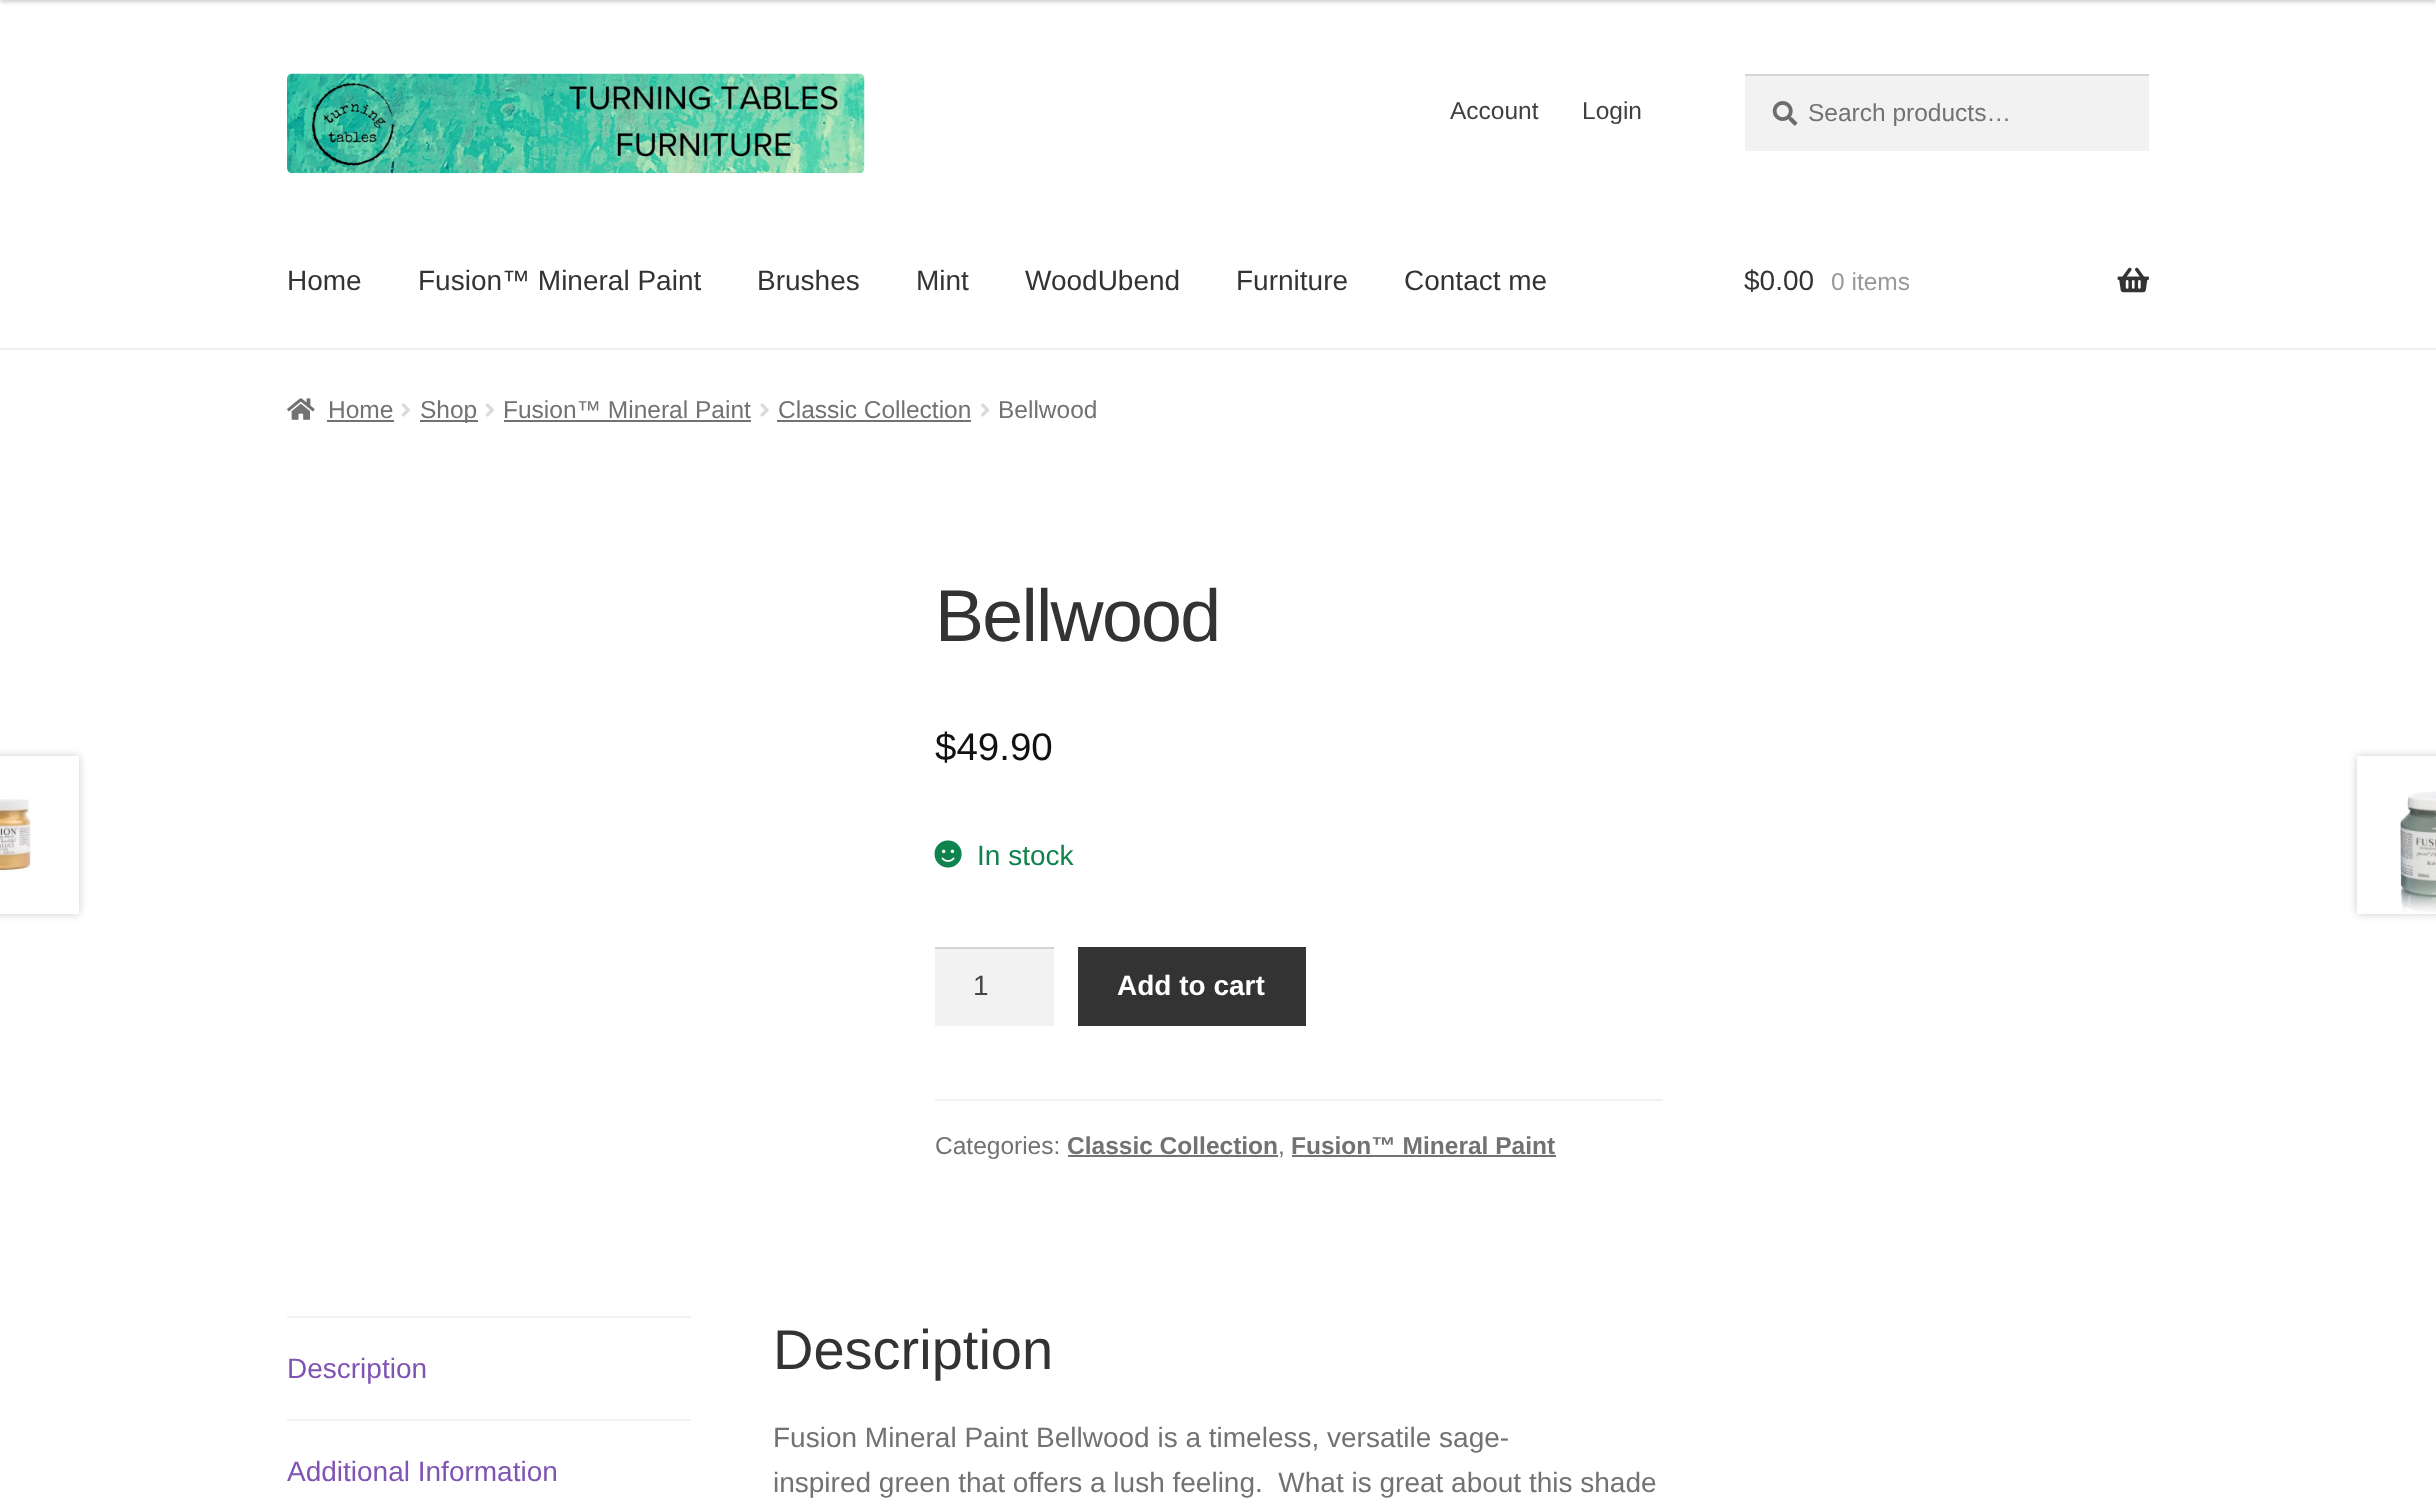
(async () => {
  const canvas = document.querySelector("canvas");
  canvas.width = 2436;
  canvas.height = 1510;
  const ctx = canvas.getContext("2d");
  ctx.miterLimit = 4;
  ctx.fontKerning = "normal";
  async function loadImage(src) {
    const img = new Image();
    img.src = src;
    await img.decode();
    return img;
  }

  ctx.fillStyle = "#ffffff";
  ctx.fillRect(0, 0, 2436, 1510);
  ctx.fillStyle = "rgba(0, 0, 0, 0.2)";
  ctx.filter = "blur(2px)";
  ctx.beginPath();
  ctx.rect(0, -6, 2436, 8);
  ctx.fill();
  ctx.filter = "none";
  ctx.fillStyle = "#f0f0f0";
  ctx.fillRect(0, 348, 2436, 2);
  ctx.drawImage(await loadImage("img/1.png"), 287, 73, 578, 101);
  ctx.fillStyle = "#f2f2f2";
  ctx.fillRect(1745, 76, 404, 75);
  ctx.drawImage(await loadImage("img/2.png"), 1772, 101, 26, 25);
  ctx.fillStyle = "#d4d4d4";
  ctx.fillRect(1745, 74, 404, 2);
  ctx.drawImage(await loadImage("img/3.png"), 2117, 267, 32, 26);
  ctx.drawImage(await loadImage("img/4.png"), 287, 398, 28, 22);
  ctx.fillStyle = "#727272";
  ctx.fillRect(327, 420, 67, 2);
  ctx.drawImage(await loadImage("img/5.png"), 401, 403, 9, 14);
  ctx.fillRect(420, 420, 58, 2);
  ctx.drawImage(await loadImage("img/5.png"), 485, 403, 9, 14);
  ctx.fillRect(504, 420, 247, 2);
  ctx.drawImage(await loadImage("img/6.png"), 760, 403, 9, 14);
  ctx.fillRect(777, 420, 194, 2);
  ctx.drawImage(await loadImage("img/7.png"), 981, 403, 9, 14);
  ctx.drawImage(await loadImage("img/8.png"), 934, 840, 28, 28);
  for (const [x, y, w, h, color] of [
    [935, 949, 119, 77, "#f2f2f2"],
    [935, 947, 119, 2, "#d4d4d4"],
    [1078, 947, 228, 79, "#333333"],
    [935, 1099, 728, 2, "#f2f2f2"],
    [1068, 1155, 210, 2, "#727272"],
    [1292, 1155, 264, 2, "#727272"],
  ]) {
    ctx.fillStyle = color;
    ctx.fillRect(x, y, w, h);
  }
  ctx.fillStyle = "rgba(0, 0, 0, 0.2)";
  ctx.filter = "blur(4.5px)";
  ctx.beginPath();
  ctx.rect(-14, 756, 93, 158);
  ctx.fill();
  ctx.filter = "none";
  ctx.fillStyle = "#ffffff";
  ctx.fillRect(0, 756, 79, 158);
  ctx.drawImage(await loadImage("img/9.png"), 0, 799, 31, 74);
  ctx.fillStyle = "rgba(0, 0, 0, 0.2)";
  ctx.filter = "blur(4.5px)";
  ctx.beginPath();
  ctx.rect(2357, 756, 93, 158);
  ctx.fill();
  ctx.filter = "none";
  ctx.fillStyle = "#ffffff";
  ctx.fillRect(2357, 756, 79, 158);
  ctx.drawImage(await loadImage("img/10.png"), 2400, 791, 36, 123);
  ctx.fillStyle = "#f2f2f2";
  ctx.fillRect(287, 1316, 404, 2);
  ctx.fillRect(287, 1419, 404, 2);
  ctx.font = "24.5px Liberation Sans";
  ctx.fillStyle = "#404040";
  ctx.fillText("Account", 1450, 119);
  ctx.fillText("Login", 1582, 119);
  ctx.fillStyle = "#727272";
  ctx.fillText("Search products…", 1808, 121);
  ctx.font = "28px Liberation Sans";
  ctx.fillStyle = "#333333";
  for (const [text, x, y] of [
    ["Home", 287, 290],
    ["Fusion™ Mineral Paint", 418, 290],
    ["Brushes", 757, 290],
    ["Mint", 916, 290],
    ["WoodUbend", 1025, 290],
    ["Furniture", 1236, 290],
    ["Contact me", 1404, 290],
    ["$0.00", 1744, 290],
  ]) {
    ctx.fillText(text, x, y);
  }
  ctx.font = "24.5px Liberation Sans";
  ctx.fillStyle = "#999999";
  ctx.fillText("0 items", 1831, 290);
  ctx.fillStyle = "#727272";
  for (const [text, x, y] of [
    ["Home", 328, 418],
    ["Shop", 420, 418],
    ["Fusion™ Mineral Paint", 503, 418],
    ["Classic Collection", 778, 418],
    ["Bellwood", 998, 418],
  ]) {
    ctx.fillText(text, x, y);
  }
  ctx.letterSpacing = "-1.75px";
  ctx.font = "73.5px Liberation Sans";
  ctx.fillStyle = "#333333";
  ctx.fillText("Bellwood", 935, 641);
  ctx.letterSpacing = "0px";
  ctx.font = "38.5px Liberation Sans";
  ctx.fillStyle = "#111111";
  ctx.fillText("$49.90", 935, 760);
  ctx.font = "28px Liberation Sans";
  ctx.fillStyle = "#0f834d";
  ctx.fillText("In stock", 977, 865);
  ctx.fillStyle = "#43454b";
  ctx.fillText("1", 973, 995);
  ctx.font = "bold 28px Liberation Sans";
  ctx.fillStyle = "#ffffff";
  ctx.fillText("Add to cart", 1117, 995);
  ctx.font = "24.5px Liberation Sans";
  ctx.fillStyle = "#727272";
  ctx.fillText("Categories:", 935, 1154);
  ctx.font = "bold 24.5px Liberation Sans";
  ctx.fillText("Classic Collection", 1067, 1154);
  ctx.font = "24.5px Liberation Sans";
  ctx.fillText(",", 1278, 1154);
  ctx.font = "bold 24.5px Liberation Sans";
  ctx.fillText("Fusion™ Mineral Paint", 1291, 1154);
  ctx.font = "28px Liberation Sans";
  ctx.fillStyle = "#7f54b3";
  ctx.fillText("Description", 287, 1378);
  ctx.fillText("Additional Information", 287, 1481);
  ctx.font = "56px Liberation Sans";
  ctx.fillStyle = "#333333";
  ctx.fillText("Description", 773, 1369);
  ctx.font = "28px Liberation Sans";
  ctx.fillStyle = "#727272";
  ctx.fillText("Fusion Mineral Paint Bellwood is a timeless, versatile sage-", 773, 1447);
  ctx.fillText("inspired green that offers a lush feeling.  What is great about this shade", 773, 1492);
})();
